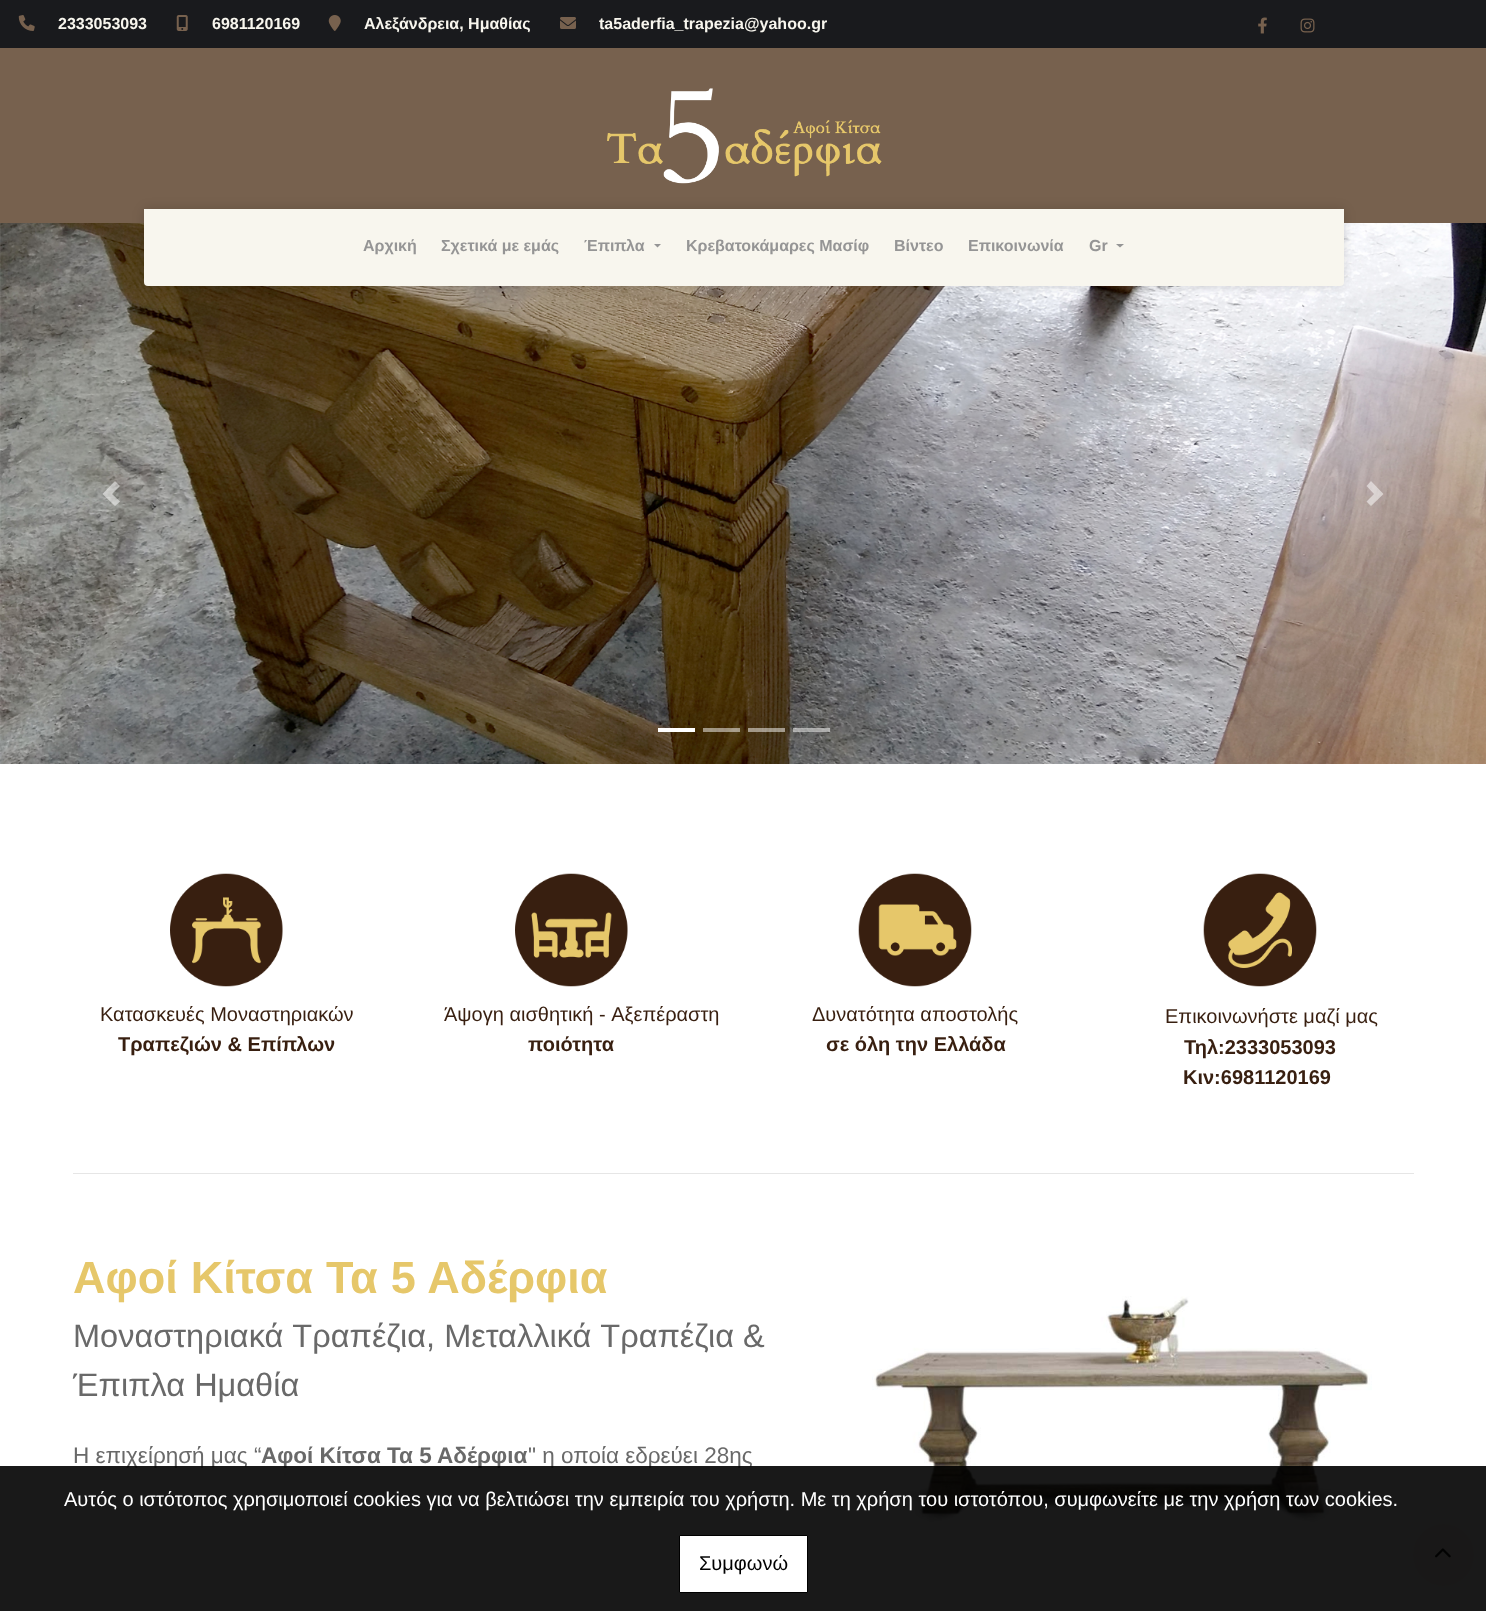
(async () => {
  const canvas = document.querySelector("canvas");
  canvas.width = 1486;
  canvas.height = 1611;
  const ctx = canvas.getContext("2d");
  ctx.miterLimit = 4;
  ctx.fontKerning = "normal";
  async function loadImage(src) {
    const img = new Image();
    img.src = src;
    await img.decode();
    return img;
  }
  let path;

  ctx.fillStyle = "#ffffff";
  ctx.fillRect(0, 0, 1486, 1611);
  ctx.fillStyle = "#191a1d";
  ctx.fillRect(0, 0, 1486, 48);
  ctx.drawImage(await loadImage("img/1.png"), 18, 15, 17, 16);
  ctx.drawImage(await loadImage("img/2.png"), 176, 15, 12, 16);
  ctx.drawImage(await loadImage("img/3.png"), 328, 15, 13, 16);
  ctx.drawImage(await loadImage("img/4.png"), 560, 17, 16, 12);
  ctx.drawImage(await loadImage("img/5.png"), 1258, 17, 9, 17);
  ctx.drawImage(await loadImage("img/6.png"), 1300, 18, 15, 15);
  ctx.fillStyle = "#77614e";
  ctx.fillRect(0, 48, 1486, 175);
  ctx.drawImage(await loadImage("img/7.png"), 607, 88, 275, 96);
  ctx.drawImage(await loadImage("img/8.png"), 0, 223, 1486, 541);
  ctx.fillStyle = "rgba(255, 255, 255, 0.5)";
  path = new Path2D("M115 481L102.5 494L115 506L120 501.5L112 494L120 486Z");
  ctx.fill(path);
  path = new Path2D("M1371 481L1366.5 486L1374 494L1366.5 501.5L1371 506L1383.5 494Z");
  ctx.fill(path);
  for (const [x, y, w, h, color] of [
    [658, 728, 37, 4, "#ffffff"],
    [703, 728, 37, 4, "rgba(255, 255, 255, 0.5)"],
    [748, 728, 37, 4, "rgba(255, 255, 255, 0.5)"],
    [793, 728, 37, 4, "rgba(255, 255, 255, 0.5)"],
  ]) {
    ctx.fillStyle = color;
    ctx.fillRect(x, y, w, h);
  }
  ctx.fillStyle = "rgba(0, 0, 0, 0.15)";
  ctx.filter = "blur(6px)";
  ctx.beginPath();
  ctx.roundRect(144, 209, 1200, 77, 4);
  ctx.fill();
  ctx.filter = "none";
  ctx.fillStyle = "#f8f6ee";
  ctx.beginPath();
  ctx.roundRect(144, 209, 1200, 77, [0, 0, 4, 4]);
  ctx.fill();
  ctx.fillStyle = "#959595";
  path = new Path2D("M654 244H661L657.5 247.5Z");
  ctx.fill(path);
  path = new Path2D("M1116 244H1124L1120 247.5Z");
  ctx.fill(path);
  ctx.drawImage(await loadImage("img/9.png"), 170, 873, 113, 114);
  ctx.drawImage(await loadImage("img/10.png"), 515, 873, 113, 114);
  ctx.drawImage(await loadImage("img/11.png"), 858, 873, 114, 114);
  ctx.drawImage(await loadImage("img/12.png"), 1203, 873, 114, 114);
  ctx.fillStyle = "#e6e6e6";
  ctx.fillRect(73, 1173, 1341, 1);
  ctx.drawImage(await loadImage("img/13.png"), 872, 1296, 500, 227);
  ctx.fillStyle = "#f8f6ee";
  ctx.beginPath();
  ctx.roundRect(1413, 1524, 61, 62, 30.5);
  ctx.fill();
  ctx.drawImage(await loadImage("img/14.png"), 1435, 1548, 16, 10);
  ctx.font = "bold 16px Arimo";
  for (const [text, x, y] of [
    ["2333053093", 58, 29],
    ["6981120169", 212, 29],
    ["Αλεξάνδρεια, Ημαθίας", 364, 29],
    ["ta5aderfia_trapezia@yahoo.gr", 599, 29],
  ]) {
    ctx.fillText(text, x, y);
  }
  ctx.fillStyle = "#959595";
  for (const [text, x, y] of [
    ["Αρχική", 363, 251],
    ["Σχετικά με εμάς", 441, 251],
    ["Έπιπλα", 584, 251],
    ["Κρεβατοκάμαρες Μασίφ", 686, 251],
    ["Βίντεο", 894, 251],
    ["Επικοινωνία", 968, 251],
    ["Gr", 1089, 251],
  ]) {
    ctx.fillText(text, x, y);
  }
  ctx.font = "20px Arimo";
  ctx.fillStyle = "#381f10";
  ctx.fillText("Κατασκευές Μοναστηριακών", 100, 1021);
  ctx.font = "bold 20px Arimo";
  ctx.fillText("Τραπεζιών & Επίπλων", 118, 1051);
  ctx.font = "20px Arimo";
  ctx.fillText("Άψογη αισθητική - Αξεπέραστη", 444, 1021);
  ctx.font = "bold 20px Arimo";
  ctx.fillText("ποιότητα", 528, 1051);
  ctx.font = "20px Arimo";
  ctx.fillText("Δυνατότητα αποστολής", 812, 1021);
  ctx.font = "bold 20px Arimo";
  ctx.fillText("σε όλη την Ελλάδα", 826, 1051);
  ctx.font = "20px Arimo";
  ctx.fillText("Επικοινωνήστε μαζί μας", 1165, 1023);
  ctx.font = "bold 20px Arimo";
  ctx.fillText("Τηλ:2333053093", 1184, 1054);
  ctx.fillText("Κιν:6981120169", 1183, 1084);
  ctx.wordSpacing = "0.5px";
  ctx.font = "bold 45px Arimo";
  ctx.fillStyle = "#e6c76a";
  ctx.fillText("Αφοί Κίτσα Τα 5 Αδέρφια", 73, 1293);
  ctx.wordSpacing = "0px";
  ctx.font = "32.5px Arimo";
  ctx.fillStyle = "#696969";
  ctx.fillText("Μοναστηριακά Τραπέζια, Μεταλλικά Τραπέζια &", 73, 1347);
  ctx.fillText("Έπιπλα Ημαθία", 73, 1396);
  ctx.font = "22.5px Arimo";
  ctx.fillText("Η επιχείρησή μας “", 73, 1463);
  ctx.font = "bold 22.5px Arimo";
  ctx.fillText("Αφοί Κίτσα Τα 5 Αδέρφια", 261, 1463);
  ctx.font = "22.5px Arimo";
  ctx.fillText("\" η οποία εδρεύει 28ης", 528, 1463);
  ctx.fillStyle = "rgba(0, 0, 0, 0.9)";
  ctx.fillRect(0, 1466, 1486, 145);
  ctx.font = "20px Arimo";
  ctx.fillStyle = "#ffffff";
  ctx.fillText("Αυτός ο ιστότοπος χρησιμοποιεί cookies για να βελτιώσει την εμπειρία του χρήστη. Με τη χρήση του ιστοτόπου, συμφωνείτε με την χρήση των cookies.", 64, 1506);
  ctx.beginPath();
  ctx.rect(679.5, 1535.5, 128, 57);
  ctx.fill();
  ctx.strokeStyle = "#000000";
  ctx.stroke();
  ctx.fillStyle = "#000000";
  ctx.fillText("Συμφωνώ", 699, 1570);
})();
